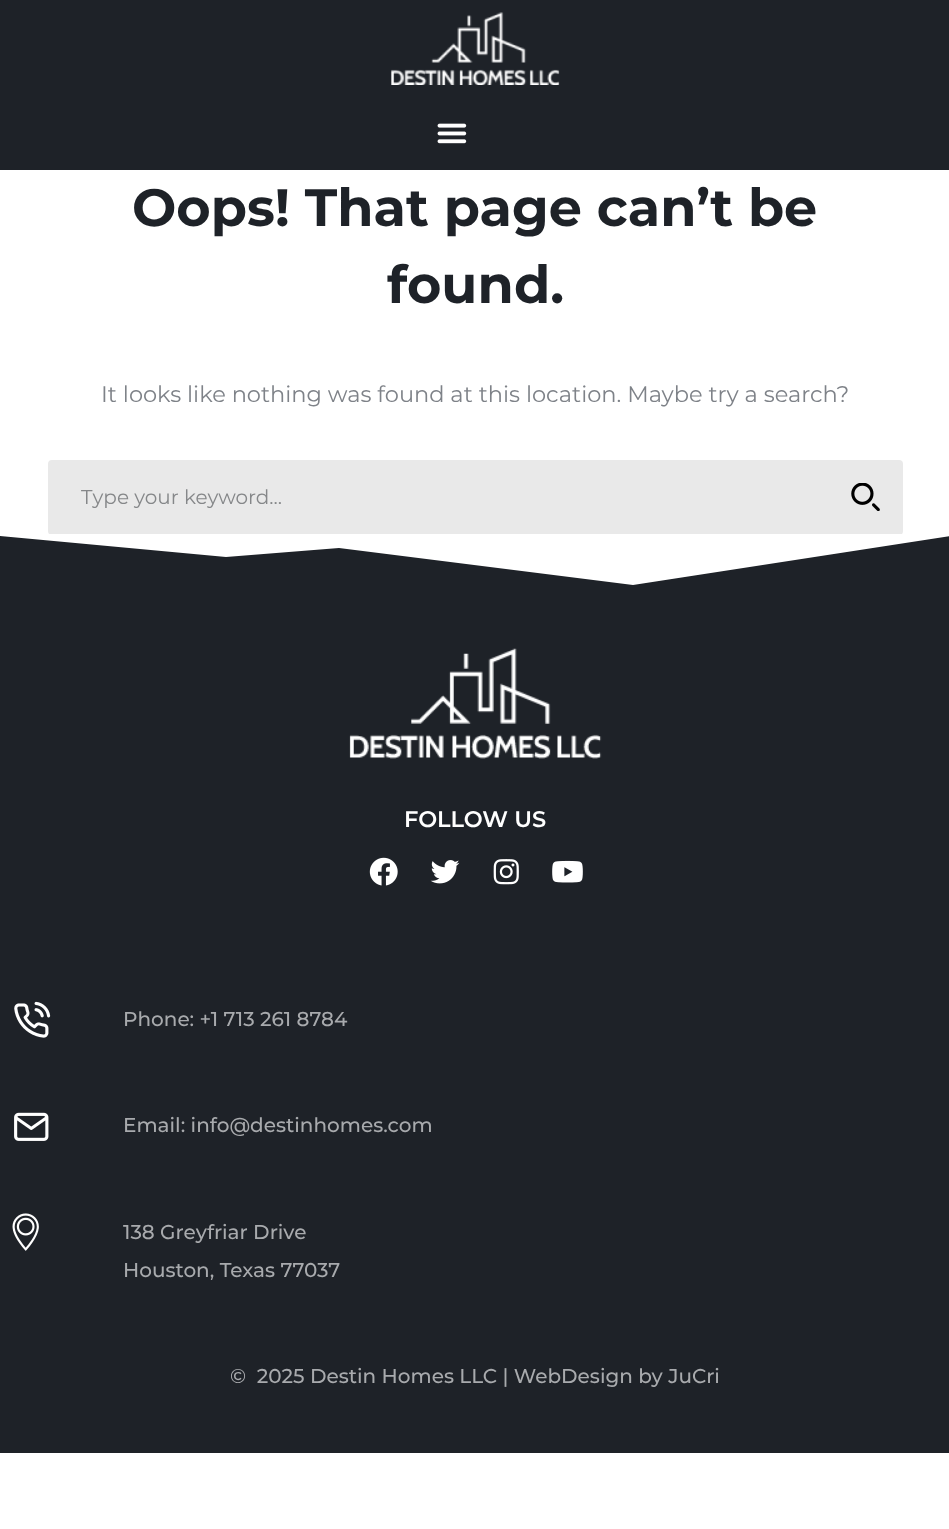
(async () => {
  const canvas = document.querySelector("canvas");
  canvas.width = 949;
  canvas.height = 1529;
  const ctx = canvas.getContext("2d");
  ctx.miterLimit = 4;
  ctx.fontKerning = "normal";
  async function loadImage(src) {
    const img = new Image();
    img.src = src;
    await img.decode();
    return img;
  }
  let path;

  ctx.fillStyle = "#ffffff";
  ctx.fillRect(0, 0, 949, 1529);
  ctx.fillStyle = "#1e2228";
  ctx.fillRect(0, 0, 949, 170);
  ctx.drawImage(await loadImage("img/1.png"), 391, 12, 169, 73);
  ctx.drawImage(await loadImage("img/2.png"), 437, 123, 30, 21);
  ctx.fillStyle = "#e9e9e9";
  ctx.beginPath();
  ctx.roundRect(49.5, 461.5, 852, 72, 2.5);
  ctx.fill();
  ctx.strokeStyle = "#e9e9e9";
  ctx.lineWidth = 3;
  ctx.stroke();
  ctx.drawImage(await loadImage("img/3.png"), 851, 483, 29, 28);
  ctx.fillStyle = "#1e2228";
  ctx.fillRect(0, 536, 949, 917);
  ctx.fillStyle = "#ffffff";
  path = new Path2D("M226 557L339 548L633 585L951 536V534H-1V536");
  ctx.fill(path);
  ctx.drawImage(await loadImage("img/4.png"), 349, 648, 253, 111);
  ctx.drawImage(await loadImage("img/5.png"), 369, 857, 29, 29);
  ctx.drawImage(await loadImage("img/6.png"), 430, 860, 30, 24);
  ctx.drawImage(await loadImage("img/7.png"), 493, 859, 26, 26);
  ctx.drawImage(await loadImage("img/8.png"), 552, 860, 31, 23);
  ctx.drawImage(await loadImage("img/9.png"), 14, 1001, 37, 37);
  ctx.drawImage(await loadImage("img/10.png"), 14, 1112, 35, 29);
  ctx.drawImage(await loadImage("img/11.png"), 12, 1213, 27, 38);
  ctx.font = "bold 52.5px Montserrat";
  ctx.fillStyle = "#1e2228";
  ctx.fillText("Oops! That page can’t be", 132, 226);
  ctx.fillText("found.", 387, 303);
  ctx.font = "22.5px Montserrat";
  ctx.fillStyle = "#7e8288";
  ctx.fillText("It looks like nothing was found at this location. Maybe try a search?", 101, 402);
  ctx.font = "20px Montserrat";
  ctx.fillStyle = "#858789";
  ctx.fillText("Type your keyword...", 81, 504);
  ctx.font = "600 22.5px Montserrat";
  ctx.fillStyle = "#ffffff";
  ctx.fillText("FOLLOW US", 404, 827);
  ctx.font = "500 20px Montserrat";
  ctx.fillStyle = "#a8aaad";
  for (const [text, x, y] of [
    ["Phone: +1 713 261 8784", 123, 1026],
    ["Email: info@destinhomes.com", 123, 1132],
    ["138 Greyfriar Drive", 123, 1239],
    ["Houston, Texas 77037", 123, 1277],
    ["©  2025 Destin Homes LLC | WebDesign by JuCri", 230, 1383],
  ]) {
    ctx.fillText(text, x, y);
  }
})();
